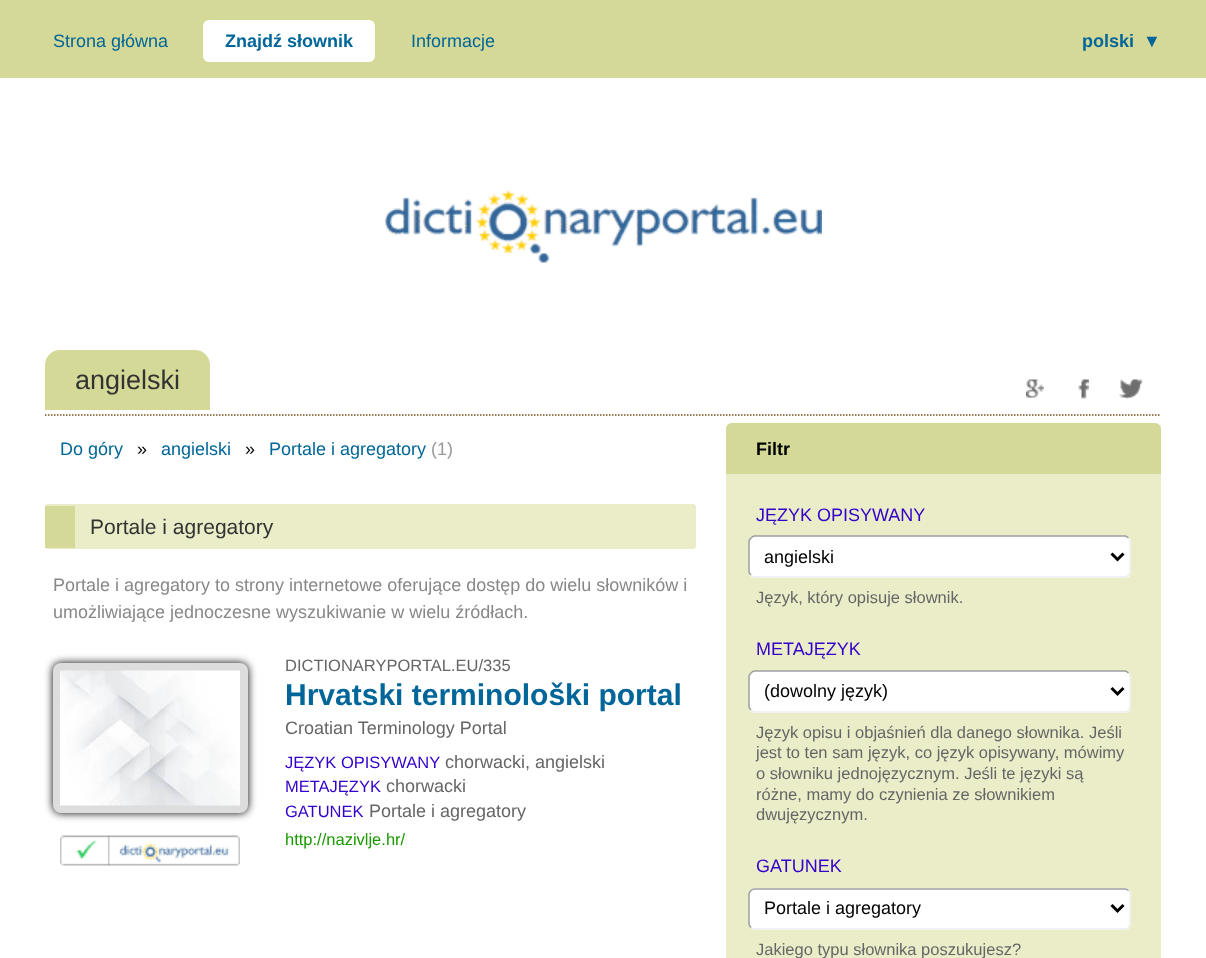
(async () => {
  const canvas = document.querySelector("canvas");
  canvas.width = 1206;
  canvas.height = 958;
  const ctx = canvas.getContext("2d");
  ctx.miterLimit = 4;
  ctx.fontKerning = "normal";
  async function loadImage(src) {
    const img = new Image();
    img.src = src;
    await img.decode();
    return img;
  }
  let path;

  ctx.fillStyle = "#ffffff";
  ctx.fillRect(0, 0, 1206, 958);
  ctx.fillStyle = "#d5d997";
  ctx.fillRect(0, 0, 1206, 78);
  ctx.fillStyle = "#ffffff";
  ctx.beginPath();
  ctx.roundRect(203, 20, 172, 42, 6);
  ctx.fill();
  ctx.drawImage(await loadImage("img/1.png"), 385, 190, 437, 73);
  path = new Path2D("M45 415H1161");
  ctx.strokeStyle = "#79531e";
  ctx.lineWidth = 1.5;
  ctx.setLineDash([1.5, 1.5]);
  ctx.stroke(path);
  ctx.fillStyle = "#d5d997";
  ctx.beginPath();
  ctx.roundRect(45, 350, 165, 60, [15, 15, 0, 0]);
  ctx.fill();
  ctx.drawImage(await loadImage("img/2.png"), 1026, 379, 18, 19);
  ctx.drawImage(await loadImage("img/3.png"), 1078, 379, 11, 20);
  ctx.drawImage(await loadImage("img/4.png"), 1119, 379, 24, 20);
  ctx.fillStyle = "#eaedc8";
  ctx.beginPath();
  ctx.roundRect(726, 423, 435, 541, 6);
  ctx.fill();
  ctx.fillStyle = "#d5d997";
  ctx.beginPath();
  ctx.roundRect(726, 423, 435, 51, [6, 6, 0, 0]);
  ctx.fill();
  ctx.fillStyle = "#ffffff";
  ctx.beginPath();
  ctx.roundRect(749, 536, 382, 42, 6);
  ctx.fill();
  path = new Path2D("M1128.5 538C1129.5 539 1130 540 1130 541.5V571.5C1130 573 1129.5 574 1128.5 575C1127.5 576 1126.5 577 1125 577H754.5C753 577 752 576 751 575");
  ctx.strokeStyle = "#eeeeee";
  ctx.setLineDash([]);
  ctx.stroke(path);
  path = new Path2D("M751 575C750 574 749 573 749 571.5V541.5C749 540 750 539 751 538C752 537 753 536 754.5 536H1125C1126.5 536 1127.5 537 1128.5 538");
  ctx.strokeStyle = "#9f9f9f";
  ctx.stroke(path);
  path = new Path2D("M1111.5 553.5L1117.5 559.5L1123.5 553.5");
  ctx.strokeStyle = "#000000";
  ctx.lineWidth = 3;
  ctx.stroke(path);
  ctx.beginPath();
  ctx.roundRect(749, 671, 382, 42, 6);
  ctx.fill();
  path = new Path2D("M1128.5 673C1129.5 674 1130 675 1130 676.5V706.5C1130 708 1129.5 709 1128.5 710C1127.5 711 1126.5 712 1125 712H754.5C753 712 752 711 751 710");
  ctx.strokeStyle = "#eeeeee";
  ctx.lineWidth = 1.5;
  ctx.stroke(path);
  path = new Path2D("M751 710C750 709 749 708 749 706.5V676.5C749 675 750 674 751 673C752 672 753 671 754.5 671H1125C1126.5 671 1127.5 672 1128.5 673");
  ctx.strokeStyle = "#9f9f9f";
  ctx.stroke(path);
  path = new Path2D("M1111.5 688L1117.5 694L1123.5 688");
  ctx.strokeStyle = "#000000";
  ctx.lineWidth = 3;
  ctx.stroke(path);
  ctx.beginPath();
  ctx.roundRect(749, 888, 382, 42, 6);
  ctx.fill();
  path = new Path2D("M1128.5 890.5C1129.5 891.5 1130 892.5 1130 894V924C1130 925.5 1129.5 926.5 1128.5 927.5C1127.5 928.5 1126.5 929 1125 929H754.5C753 929 752 928.5 751 927.5");
  ctx.strokeStyle = "#eeeeee";
  ctx.lineWidth = 1.5;
  ctx.stroke(path);
  path = new Path2D("M751 927.5C750 926.5 749 925.5 749 924V894C749 892.5 750 891.5 751 890.5C752 889.5 753 889 754.5 889H1125C1126.5 889 1127.5 889.5 1128.5 890.5");
  ctx.strokeStyle = "#9f9f9f";
  ctx.stroke(path);
  path = new Path2D("M1111.5 905L1117.5 911L1123.5 905");
  ctx.strokeStyle = "#000000";
  ctx.lineWidth = 3;
  ctx.stroke(path);
  ctx.fillStyle = "#eaedc8";
  ctx.beginPath();
  ctx.roundRect(45, 504, 651, 45, 3);
  ctx.fill();
  ctx.fillStyle = "#d5d997";
  ctx.fillRect(45, 506, 30, 42);
  ctx.fillStyle = "#000000";
  ctx.filter = "blur(4px)";
  ctx.beginPath();
  ctx.roundRect(53, 663, 195, 150, 8);
  ctx.fill();
  ctx.filter = "none";
  ctx.beginPath();
  ctx.roundRect(57, 667, 187, 142, 4);
  ctx.strokeStyle = "#dddddd";
  ctx.lineWidth = 8;
  ctx.stroke();
  ctx.drawImage(await loadImage("img/5.png"), 60, 670, 180, 136);
  ctx.drawImage(await loadImage("img/6.png"), 60, 835, 180, 31);
  ctx.font = "18px Liberation Sans";
  ctx.fillStyle = "#006699";
  ctx.fillText("Strona główna", 53, 47);
  ctx.font = "bold 18px Liberation Sans";
  ctx.fillText("Znajdź słownik", 225, 47);
  ctx.font = "18px Liberation Sans";
  ctx.fillText("Informacje", 411, 47);
  ctx.font = "bold 18px Liberation Sans";
  ctx.fillText("polski", 1082, 47);
  ctx.fillText("▼", 1143, 47);
  ctx.font = "27px Liberation Sans";
  ctx.fillStyle = "#333333";
  ctx.fillText("angielski", 75, 389);
  ctx.font = "18px Liberation Sans";
  ctx.fillStyle = "#006699";
  ctx.fillText("Do góry", 60, 455);
  ctx.fillStyle = "#000000";
  ctx.fillText("»", 137, 455);
  ctx.fillStyle = "#006699";
  ctx.fillText("angielski", 161, 455);
  ctx.fillStyle = "#000000";
  ctx.fillText("»", 245, 455);
  ctx.fillStyle = "#006699";
  ctx.fillText("Portale i agregatory", 269, 455);
  ctx.fillStyle = "#999999";
  ctx.fillText("(1)", 431, 455);
  ctx.font = "bold 18px Liberation Sans";
  ctx.fillStyle = "#000000";
  ctx.fillText("Filtr", 756, 455);
  ctx.font = "18px Liberation Sans";
  ctx.fillStyle = "#3300cc";
  ctx.fillText("JĘZYK OPISYWANY", 756, 521);
  ctx.fillStyle = "#000000";
  ctx.fillText("angielski", 764, 563);
  ctx.font = "16.5px Liberation Sans";
  ctx.fillStyle = "#666666";
  ctx.fillText("Język, który opisuje słownik.", 756, 603);
  ctx.font = "18px Liberation Sans";
  ctx.fillStyle = "#3300cc";
  ctx.fillText("METAJĘZYK", 756, 655);
  ctx.fillStyle = "#000000";
  ctx.fillText("(dowolny język)", 764, 697);
  ctx.font = "16.5px Liberation Sans";
  ctx.fillStyle = "#666666";
  for (const [text, x, y] of [
    ["Język opisu i objaśnień dla danego słownika. Jeśli", 756, 738],
    ["jest to ten sam język, co język opisywany, mówimy", 756, 758],
    ["o słowniku jednojęzycznym. Jeśli te języki są", 756, 779],
    ["różne, mamy do czynienia ze słownikiem", 756, 800],
    ["dwujęzycznym.", 756, 820],
  ]) {
    ctx.fillText(text, x, y);
  }
  ctx.font = "18px Liberation Sans";
  ctx.fillStyle = "#3300cc";
  ctx.fillText("GATUNEK", 756, 872);
  ctx.fillStyle = "#000000";
  ctx.fillText("Portale i agregatory", 764, 914);
  ctx.font = "16.5px Liberation Sans";
  ctx.fillStyle = "#666666";
  ctx.fillText("Jakiego typu słownika poszukujesz?", 756, 955);
  ctx.font = "21px Liberation Sans";
  ctx.fillStyle = "#333333";
  ctx.fillText("Portale i agregatory", 90, 534);
  ctx.font = "18px Liberation Sans";
  ctx.fillStyle = "#888888";
  ctx.fillText("Portale i agregatory to strony internetowe oferujące dostęp do wielu słowników i", 53, 591);
  ctx.fillText("umożliwiające jednoczesne wyszukiwanie w wielu źródłach.", 53, 618);
  ctx.font = "16.5px Liberation Sans";
  ctx.fillStyle = "#666666";
  ctx.fillText("DICTIONARYPORTAL.EU/335", 285, 671);
  ctx.font = "bold 30px Liberation Sans";
  ctx.fillStyle = "#006699";
  ctx.fillText("Hrvatski terminološki portal", 285, 705);
  ctx.font = "18px Liberation Sans";
  ctx.fillStyle = "#666666";
  ctx.fillText("Croatian Terminology Portal", 285, 734);
  ctx.font = "16.5px Liberation Sans";
  ctx.fillStyle = "#3300cc";
  ctx.fillText("JĘZYK OPISYWANY", 285, 768);
  ctx.font = "18px Liberation Sans";
  ctx.fillStyle = "#666666";
  ctx.fillText("chorwacki, angielski", 445, 768);
  ctx.font = "16.5px Liberation Sans";
  ctx.fillStyle = "#3300cc";
  ctx.fillText("METAJĘZYK", 285, 792);
  ctx.font = "18px Liberation Sans";
  ctx.fillStyle = "#666666";
  ctx.fillText("chorwacki", 386, 792);
  ctx.font = "16.5px Liberation Sans";
  ctx.fillStyle = "#3300cc";
  ctx.fillText("GATUNEK", 285, 817);
  ctx.font = "18px Liberation Sans";
  ctx.fillStyle = "#666666";
  ctx.fillText("Portale i agregatory", 369, 817);
  ctx.font = "16.5px Liberation Sans";
  ctx.fillStyle = "#1a9900";
  ctx.fillText("http://nazivlje.hr/", 285, 845);
})();
